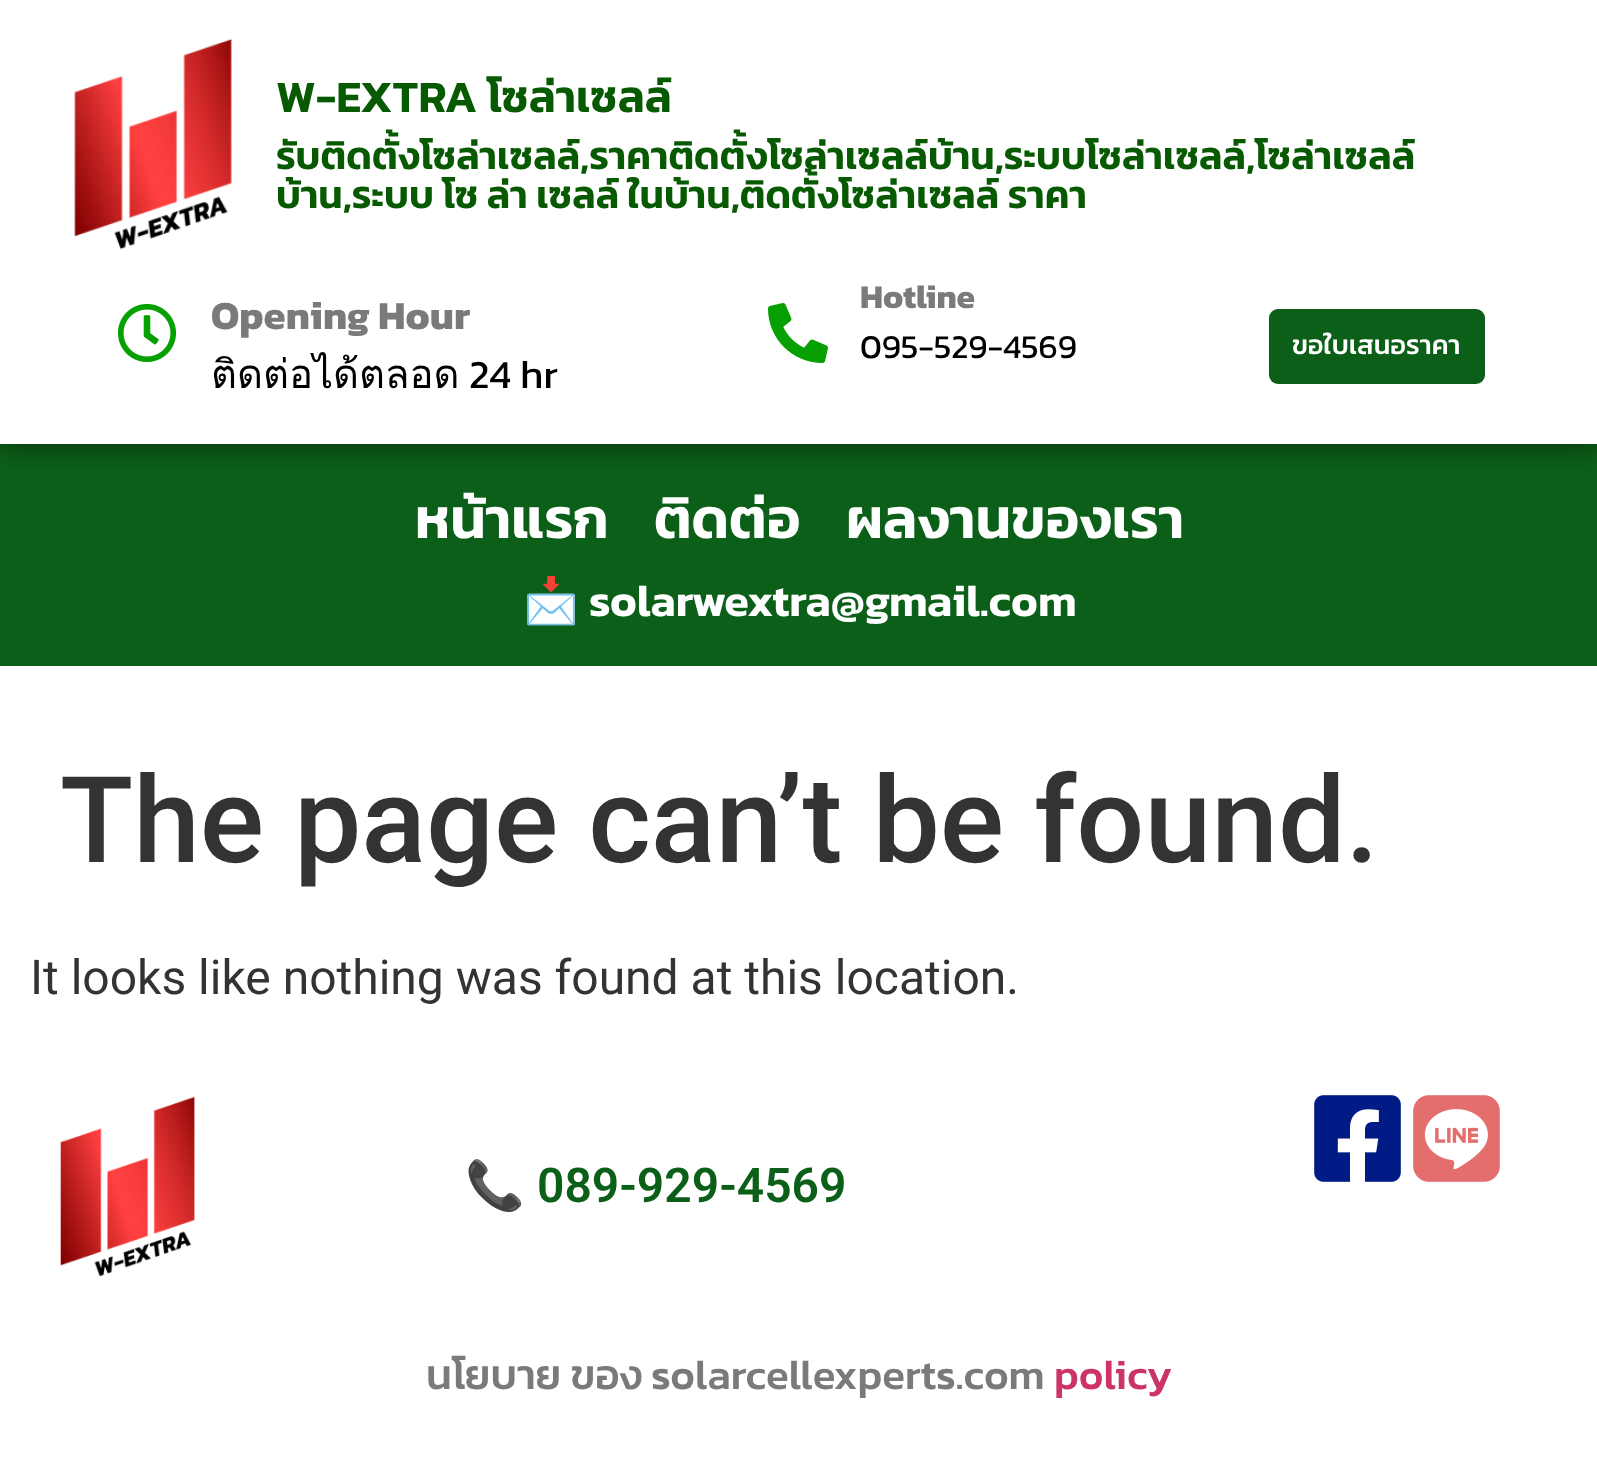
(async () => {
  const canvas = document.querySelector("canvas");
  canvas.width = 1597;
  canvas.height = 1482;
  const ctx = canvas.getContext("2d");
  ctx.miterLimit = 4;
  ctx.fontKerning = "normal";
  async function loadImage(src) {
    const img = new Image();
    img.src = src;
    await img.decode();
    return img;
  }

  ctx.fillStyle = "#ffffff";
  ctx.fillRect(0, 0, 1597, 1482);
  ctx.fillStyle = "#0c5f18";
  ctx.fillRect(0, 444, 1597, 222);
  ctx.save();
  ctx.beginPath();
  ctx.rect(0, 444, 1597, 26);
  ctx.clip();
  ctx.fillStyle = "rgba(0, 0, 0, 0.5)";
  ctx.filter = "blur(15px)";
  ctx.beginPath();
  ctx.rect(0, 0, 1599, 444);
  ctx.fill();
  ctx.filter = "none";
  ctx.restore();
  ctx.drawImage(await loadImage("img/1.png"), 74, 38, 158, 212);
  ctx.drawImage(await loadImage("img/2.png"), 117, 303, 60, 60);
  ctx.drawImage(await loadImage("img/3.png"), 768, 303, 60, 60);
  ctx.beginPath();
  ctx.roundRect(1269, 309, 216, 75, 9);
  ctx.fill();
  ctx.drawImage(await loadImage("img/4.png"), 60, 1096, 135, 181);
  ctx.drawImage(await loadImage("img/5.png"), 1314, 1095, 87, 87);
  ctx.drawImage(await loadImage("img/6.png"), 1413, 1095, 87, 87);
  ctx.font = "600 45px Kanit";
  ctx.fillStyle = "#075a02";
  ctx.fillText("W-EXTRA โซล่าเซลล์", 276, 112);
  ctx.font = "600 39px Kanit";
  ctx.fillText("รับติดตั้งโซล่าเซลล์,ราคาติดตั้งโซล่าเซลล์บ้าน,ระบบโซล่าเซลล์,โซล่าเซลล์", 276, 169);
  ctx.fillText("บ้าน,ระบบ โซ ล่า เซลล์ ในบ้าน,ติดตั้งโซล่าเซลล์ ราคา", 276, 208);
  ctx.font = "bold 40px Kanit";
  ctx.fillStyle = "#7a7a7a";
  ctx.fillText("Opening Hour", 211, 329);
  ctx.font = "40px Loma";
  ctx.fillStyle = "#000000";
  ctx.fillText("ติดต่อได้ตลอด", 211, 388);
  ctx.font = "40px Kanit";
  ctx.fillText("24 hr", 469, 388);
  ctx.font = "bold 33.5px Kanit";
  ctx.fillStyle = "#7a7a7a";
  ctx.fillText("Hotline", 860, 308);
  ctx.font = "33.5px Kanit";
  ctx.fillStyle = "#000000";
  ctx.fillText("095-529-4569", 860, 358);
  ctx.font = "500 27px Kanit";
  ctx.fillStyle = "#ffffff";
  ctx.fillText("ขอใบเสนอราคา", 1292, 354);
  ctx.font = "600 57px Kanit";
  for (const [text, x, y] of [
    ["หน้าแรก", 415, 538],
    ["ติดต่อ", 654, 538],
    ["ผลงานของเรา", 846, 538],
  ]) {
    ctx.fillText(text, x, y);
  }
  ctx.font = "bold 45px Noto Color Emoji";
  ctx.fillText("📩", 523, 616);
  ctx.font = "600 45px Kanit";
  ctx.fillText("solarwextra@gmail.com", 589, 616);
  ctx.font = "500 120px Roboto";
  ctx.fillStyle = "#333333";
  ctx.fillText("The page can’t be found.", 60, 862);
  ctx.font = "48px Roboto";
  ctx.fillText("It looks like nothing was found at this location.", 30, 994);
  ctx.font = "bold 48px 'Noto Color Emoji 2'";
  ctx.fillStyle = "#0c5f18";
  ctx.fillText("📞", 465, 1202);
  ctx.font = "600 48px Roboto";
  ctx.fillText("089-929-4569", 537, 1202);
  ctx.font = "500 42px Kanit";
  ctx.fillStyle = "#7a7a7a";
  ctx.fillText("นโยบาย ของ solarcellexperts.com", 426, 1389);
  ctx.fillStyle = "#cc3366";
  ctx.fillText("policy", 1054, 1389);
})();
